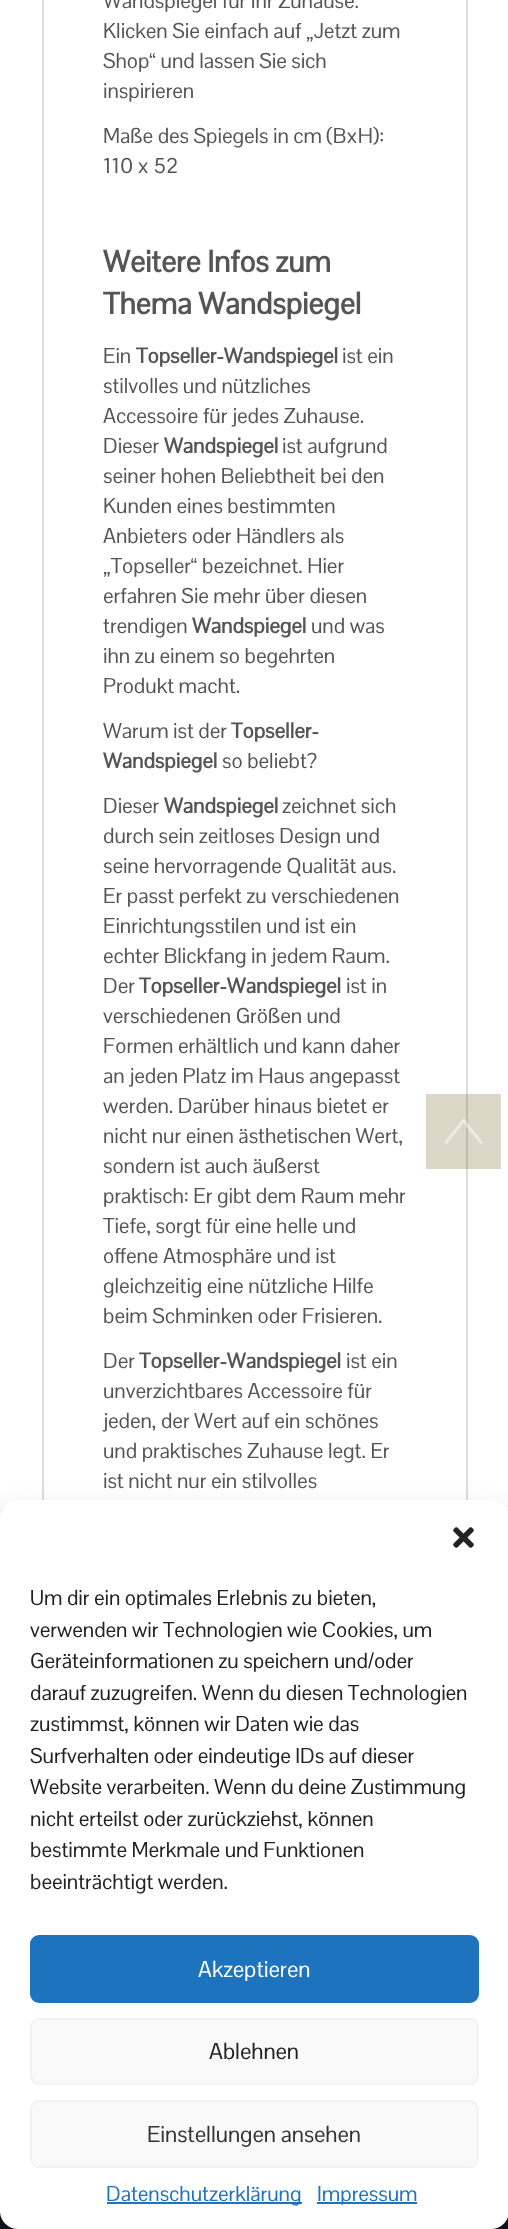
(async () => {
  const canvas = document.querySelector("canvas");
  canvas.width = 508;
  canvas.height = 2229;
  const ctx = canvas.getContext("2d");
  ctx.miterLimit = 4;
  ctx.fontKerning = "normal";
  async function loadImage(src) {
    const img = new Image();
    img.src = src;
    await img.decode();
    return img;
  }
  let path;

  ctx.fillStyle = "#ffffff";
  ctx.fillRect(0, 0, 508, 2229);
  ctx.strokeStyle = "#dddddd";
  ctx.lineWidth = 2;
  ctx.strokeRect(43, -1, 424, 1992);
  ctx.fillStyle = "rgba(118, 94, 34, 0.25)";
  ctx.fillRect(426, 1094, 75, 75);
  ctx.fillStyle = "rgba(255, 255, 255, 0.5)";
  path = new Path2D("M463.5 1118L483 1142.5L480.5 1144L463.5 1123L447 1144L444 1142.5Z");
  ctx.fill(path);
  ctx.fillStyle = "#121921";
  ctx.fillRect(0, 2211, 508, 18);
  ctx.fillStyle = "rgba(0, 0, 0, 0.23)";
  ctx.filter = "blur(4.5px)";
  ctx.beginPath();
  ctx.roundRect(0, 1509, 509, 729, 18);
  ctx.fill();
  ctx.filter = "none";
  ctx.fillStyle = "rgba(0, 0, 0, 0.19)";
  ctx.filter = "blur(15px)";
  ctx.beginPath();
  ctx.roundRect(0, 1515, 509, 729, 18);
  ctx.fill();
  ctx.filter = "none";
  ctx.fillStyle = "#ffffff";
  ctx.beginPath();
  ctx.roundRect(0, 1500, 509, 729, 18);
  ctx.fill();
  ctx.drawImage(await loadImage("img/1.png"), 453, 1527, 21, 21);
  ctx.fillStyle = "#1e73be";
  ctx.beginPath();
  ctx.roundRect(31, 1936, 447, 66, 8);
  ctx.fill();
  ctx.strokeStyle = "#1e73be";
  ctx.stroke();
  ctx.fillStyle = "#f9f9f9";
  ctx.beginPath();
  ctx.roundRect(31, 2019, 447, 65, 8);
  ctx.fill();
  ctx.strokeStyle = "#f2f2f2";
  ctx.stroke();
  ctx.beginPath();
  ctx.roundRect(31, 2101, 447, 66, 8);
  ctx.fill();
  ctx.stroke();
  ctx.fillStyle = "#1e73be";
  ctx.fillRect(107, 2202, 195, 2);
  ctx.fillRect(317, 2202, 100, 2);
  ctx.font = "21px Pontano Sans";
  ctx.fillStyle = "#555555";
  for (const [text, x, y] of [
    ["Wandspiegel für Ihr Zuhause.", 103, 8],
    ["Klicken Sie einfach auf „Jetzt zum", 103, 38],
    ["Shop“ und lassen Sie sich", 103, 68],
    ["inspirieren", 103, 98],
    ["Maße des Spiegels in cm (BxH):", 103, 143],
    ["110 x 52", 103, 173],
  ]) {
    ctx.fillText(text, x, y);
  }
  ctx.font = "bold 30px Pontano Sans";
  ctx.fillText("Weitere Infos zum", 103, 272);
  ctx.fillText("Thema Wandspiegel", 103, 314);
  ctx.font = "21px Pontano Sans";
  ctx.fillText("Ein", 103, 363);
  ctx.font = "bold 21px Pontano Sans";
  ctx.fillText("Topseller-Wandspiegel", 136, 363);
  ctx.font = "21px Pontano Sans";
  for (const [text, x, y] of [
    ["ist ein", 342, 363],
    ["stilvolles und nützliches", 103, 393],
    ["Accessoire für jedes Zuhause.", 103, 423],
    ["Dieser", 103, 453],
  ]) {
    ctx.fillText(text, x, y);
  }
  ctx.font = "bold 21px Pontano Sans";
  ctx.fillText("Wandspiegel", 164, 453);
  ctx.font = "21px Pontano Sans";
  for (const [text, x, y] of [
    ["ist aufgrund", 282, 453],
    ["seiner hohen Beliebtheit bei den", 103, 483],
    ["Kunden eines bestimmten", 103, 513],
    ["Anbieters oder Händlers als", 103, 543],
    ["„Topseller“ bezeichnet. Hier", 103, 573],
    ["erfahren Sie mehr über diesen", 103, 603],
    ["trendigen", 103, 633],
  ]) {
    ctx.fillText(text, x, y);
  }
  ctx.font = "bold 21px Pontano Sans";
  ctx.fillText("Wandspiegel", 192, 633);
  ctx.font = "21px Pontano Sans";
  for (const [text, x, y] of [
    ["und was", 311, 633],
    ["ihn zu einem so begehrten", 103, 663],
    ["Produkt macht.", 103, 693],
    ["Warum ist der", 103, 738],
  ]) {
    ctx.fillText(text, x, y);
  }
  ctx.font = "bold 21px Pontano Sans";
  ctx.fillText("Topseller-", 231, 738);
  ctx.fillText("Wandspiegel", 103, 768);
  ctx.font = "21px Pontano Sans";
  ctx.fillText("so beliebt?", 222, 768);
  ctx.fillText("Dieser", 103, 813);
  ctx.font = "bold 21px Pontano Sans";
  ctx.fillText("Wandspiegel", 164, 813);
  ctx.font = "21px Pontano Sans";
  for (const [text, x, y] of [
    ["zeichnet sich", 282, 813],
    ["durch sein zeitloses Design und", 103, 843],
    ["seine hervorragende Qualität aus.", 103, 873],
    ["Er passt perfekt zu verschiedenen", 103, 903],
    ["Einrichtungsstilen und ist ein", 103, 933],
    ["echter Blickfang in jedem Raum.", 103, 963],
    ["Der", 103, 993],
  ]) {
    ctx.fillText(text, x, y);
  }
  ctx.font = "bold 21px Pontano Sans";
  ctx.fillText("Topseller-Wandspiegel", 139, 993);
  ctx.font = "21px Pontano Sans";
  for (const [text, x, y] of [
    ["ist in", 346, 993],
    ["verschiedenen Größen und", 103, 1023],
    ["Formen erhältlich und kann daher", 103, 1053],
    ["an jeden Platz im Haus angepasst", 103, 1083],
    ["werden. Darüber hinaus bietet er", 103, 1113],
    ["nicht nur einen ästhetischen Wert,", 103, 1143],
    ["sondern ist auch äußerst", 103, 1173],
    ["praktisch: Er gibt dem Raum mehr", 103, 1203],
    ["Tiefe, sorgt für eine helle und", 103, 1233],
    ["offene Atmosphäre und ist", 103, 1263],
    ["gleichzeitig eine nützliche Hilfe", 103, 1293],
    ["beim Schminken oder Frisieren.", 103, 1323],
    ["Der", 103, 1368],
  ]) {
    ctx.fillText(text, x, y);
  }
  ctx.font = "bold 21px Pontano Sans";
  ctx.fillText("Topseller-Wandspiegel", 139, 1368);
  ctx.font = "21px Pontano Sans";
  for (const [text, x, y] of [
    ["ist ein", 346, 1368],
    ["unverzichtbares Accessoire für", 103, 1398],
    ["jeden, der Wert auf ein schönes", 103, 1428],
    ["und praktisches Zuhause legt. Er", 103, 1458],
    ["ist nicht nur ein stilvolles", 103, 1488],
  ]) {
    ctx.fillText(text, x, y);
  }
  ctx.fillStyle = "#222222";
  for (const [text, x, y] of [
    ["Um dir ein optimales Erlebnis zu bieten,", 30, 1605],
    ["verwenden wir Technologien wie Cookies, um", 30, 1637],
    ["Geräteinformationen zu speichern und/oder", 30, 1668],
    ["darauf zuzugreifen. Wenn du diesen Technologien", 30, 1700],
    ["zustimmst, können wir Daten wie das", 30, 1731],
    ["Surfverhalten oder eindeutige IDs auf dieser", 30, 1763],
    ["Website verarbeiten. Wenn du deine Zustimmung", 30, 1794],
    ["nicht erteilst oder zurückziehst, können", 30, 1826],
    ["bestimmte Merkmale und Funktionen", 30, 1857],
    ["beeinträchtigt werden.", 30, 1889],
  ]) {
    ctx.fillText(text, x, y);
  }
  ctx.font = "22.5px Pontano Sans";
  ctx.fillStyle = "#ffffff";
  ctx.fillText("Akzeptieren", 198, 1977);
  ctx.fillStyle = "#222222";
  ctx.fillText("Ablehnen", 209, 2059);
  ctx.fillStyle = "#333333";
  ctx.fillText("Einstellungen ansehen", 147, 2142);
  ctx.font = "21px Pontano Sans";
  ctx.fillStyle = "#1e73be";
  ctx.fillText("Datenschutzerklärung", 106, 2201);
  ctx.fillText("Impressum", 317, 2201);
})();
